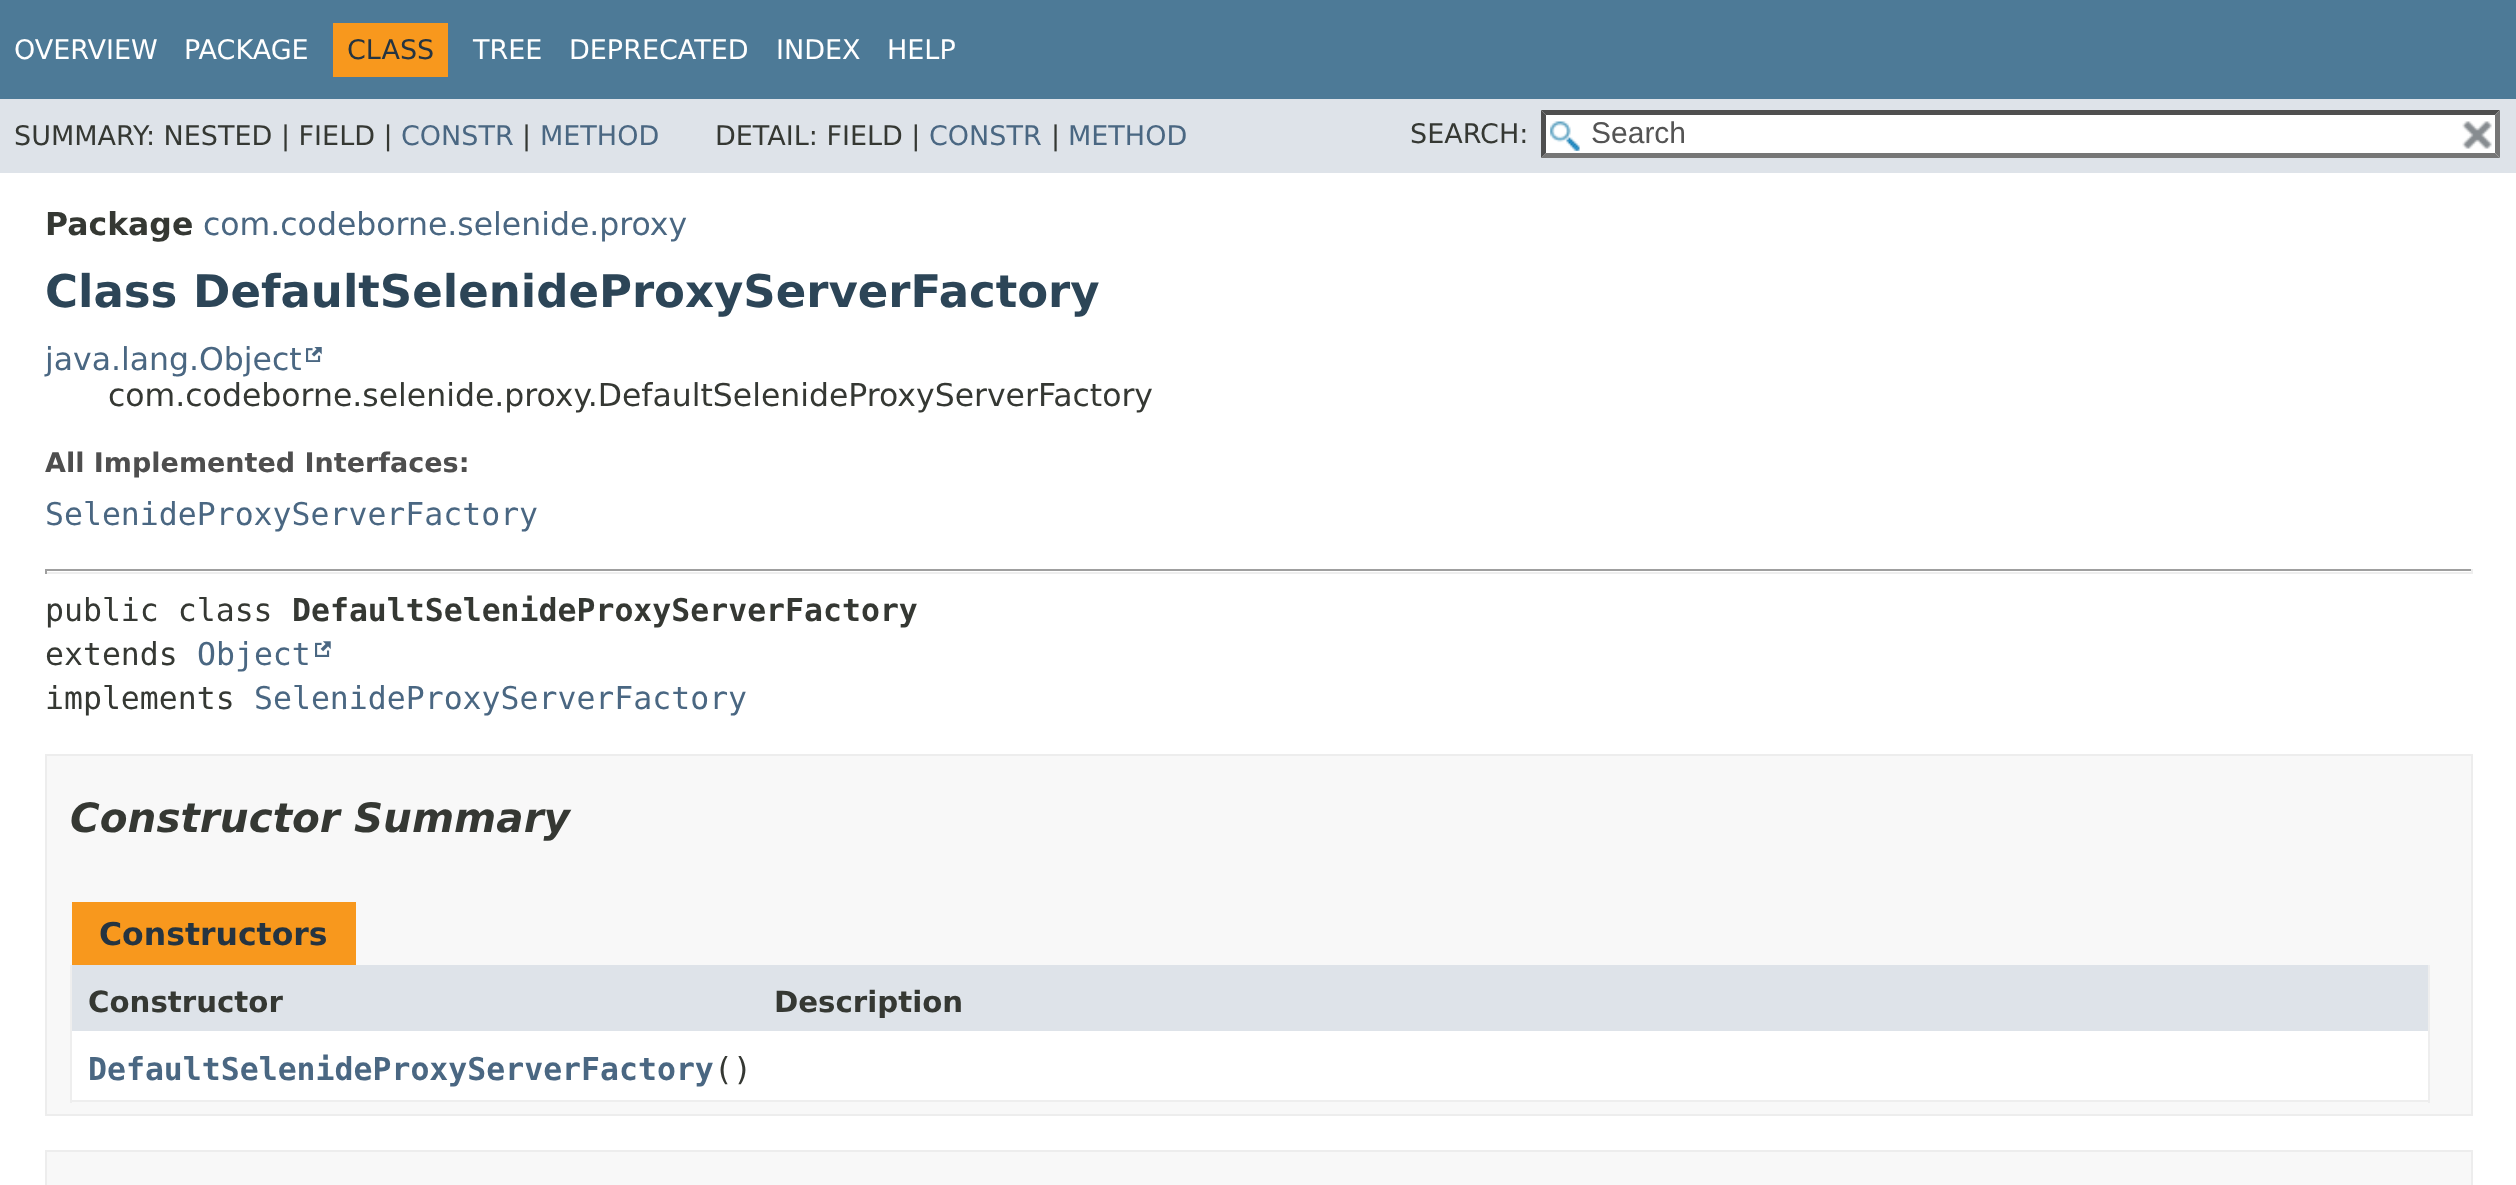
(async () => {
  const canvas = document.querySelector("canvas");
  canvas.width = 2516;
  canvas.height = 1185;
  const ctx = canvas.getContext("2d");
  ctx.miterLimit = 4;
  ctx.fontKerning = "normal";
  async function loadImage(src) {
    const img = new Image();
    img.src = src;
    await img.decode();
    return img;
  }
  let path;

  ctx.fillStyle = "#ffffff";
  ctx.fillRect(0, 0, 2516, 1185);
  for (const [x, y, w, h, color] of [
    [0, 0, 2516, 99, "#4d7a97"],
    [333, 23, 115, 54, "#f8981d"],
    [0, 99, 2516, 74, "#dee3e9"],
    [1541, 110, 959, 48, "#ffffff"],
  ]) {
    ctx.fillStyle = color;
    ctx.fillRect(x, y, w, h);
  }
  ctx.drawImage(await loadImage("img/1.png"), 1550, 121, 30, 30);
  ctx.fillStyle = "#4f4f4f";
  path = new Path2D("M1541 110H2500L2495 115H1546Z");
  ctx.fill(path);
  ctx.fillStyle = "#767676";
  path = new Path2D("M2500 110V158L2495 153V115Z");
  ctx.fill(path);
  path = new Path2D("M2500 158H1541L1546 153H2495Z");
  ctx.fill(path);
  ctx.fillStyle = "#4f4f4f";
  path = new Path2D("M1541 158V110L1546 115V153Z");
  ctx.fill(path);
  ctx.drawImage(await loadImage("img/2.png"), 2462, 121, 30, 28);
  ctx.drawImage(await loadImage("img/3.png"), 306, 347, 16, 15);
  for (const [x, y, w, h, color] of [
    [45, 569, 2428, 2, "#9f9f9f"],
    [2471, 569, 2, 5, "#eeeeee"],
    [45, 572, 2428, 2, "#eeeeee"],
    [45, 569, 2, 5, "#9f9f9f"],
  ]) {
    ctx.fillStyle = color;
    ctx.fillRect(x, y, w, h);
  }
  ctx.drawImage(await loadImage("img/4.png"), 315, 641, 16, 16);
  ctx.fillStyle = "#f8f8f8";
  ctx.beginPath();
  ctx.rect(46, 755, 2426, 360);
  ctx.fill();
  ctx.strokeStyle = "#ededed";
  ctx.lineWidth = 2;
  ctx.stroke();
  for (const [x, y, w, h, color] of [
    [72, 902, 284, 63, "#f8981d"],
    [2428, 965, 2, 138, "#eeeeee"],
    [70, 1100, 2360, 2, "#eeeeee"],
    [70, 965, 2, 138, "#eeeeee"],
    [72, 965, 2356, 66, "#dee3e9"],
    [72, 1031, 2356, 69, "#ffffff"],
  ]) {
    ctx.fillStyle = color;
    ctx.fillRect(x, y, w, h);
  }
  ctx.fillStyle = "#f8f8f8";
  ctx.beginPath();
  ctx.rect(46, 1151, 2426, 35);
  ctx.fill();
  ctx.stroke();
  ctx.font = "27px DejaVu Sans";
  ctx.fillStyle = "#ffffff";
  ctx.fillText("OVERVIEW", 14, 59);
  ctx.fillText("PACKAGE", 184, 59);
  ctx.fillStyle = "#253441";
  ctx.fillText("CLASS", 347, 59);
  ctx.fillStyle = "#ffffff";
  for (const [text, x, y] of [
    ["TREE", 473, 59],
    ["DEPRECATED", 569, 59],
    ["INDEX", 776, 59],
    ["HELP", 887, 59],
  ]) {
    ctx.fillText(text, x, y);
  }
  ctx.fillStyle = "#353833";
  ctx.fillText("SUMMARY: NESTED | FIELD |", 14, 145);
  ctx.fillStyle = "#4a6782";
  ctx.fillText("CONSTR", 401, 145);
  ctx.fillStyle = "#353833";
  ctx.fillText("|", 522, 145);
  ctx.fillStyle = "#4a6782";
  ctx.fillText("METHOD", 540, 145);
  ctx.fillStyle = "#353833";
  ctx.fillText("DETAIL: FIELD |", 715, 145);
  ctx.fillStyle = "#4a6782";
  ctx.fillText("CONSTR", 929, 145);
  ctx.fillStyle = "#353833";
  ctx.fillText("|", 1051, 145);
  ctx.fillStyle = "#4a6782";
  ctx.fillText("METHOD", 1068, 145);
  ctx.fillStyle = "#353833";
  ctx.fillText("SEARCH:", 1410, 143);
  ctx.font = "30px Liberation Sans";
  ctx.fillStyle = "#545454";
  ctx.fillText("Search", 1591, 143);
  ctx.font = "bold 31.5px DejaVu Sans";
  ctx.fillStyle = "#353833";
  ctx.fillText("Package", 45, 235);
  ctx.font = "31.5px DejaVu Sans";
  ctx.fillStyle = "#4a6782";
  ctx.fillText("com.codeborne.selenide.proxy", 203, 235);
  ctx.font = "bold 45px DejaVu Sans";
  ctx.fillStyle = "#2c4557";
  ctx.fillText("Class DefaultSelenideProxyServerFactory", 45, 307);
  ctx.font = "31.5px DejaVu Sans";
  ctx.fillStyle = "#4a6782";
  ctx.fillText("java.lang.Object", 45, 370);
  ctx.fillStyle = "#353833";
  ctx.fillText("com.codeborne.selenide.proxy.DefaultSelenideProxyServerFactory", 108, 406);
  ctx.font = "bold 27px DejaVu Sans";
  ctx.fillStyle = "#4e4e4e";
  ctx.fillText("All Implemented Interfaces:", 45, 472);
  ctx.font = "31.5px DejaVu Sans Mono";
  ctx.fillStyle = "#4a6782";
  ctx.fillText("SelenideProxyServerFactory", 45, 525);
  ctx.fillStyle = "#353833";
  ctx.fillText("public class", 45, 621);
  ctx.font = "bold 31.5px DejaVu Sans Mono";
  ctx.fillText("DefaultSelenideProxyServerFactory", 292, 621);
  ctx.font = "31.5px DejaVu Sans Mono";
  ctx.fillText("extends", 45, 665);
  ctx.fillStyle = "#4a6782";
  ctx.fillText("Object", 197, 665);
  ctx.fillStyle = "#353833";
  ctx.fillText("implements", 45, 709);
  ctx.fillStyle = "#4a6782";
  ctx.fillText("SelenideProxyServerFactory", 254, 709);
  ctx.font = "italic bold 40.5px DejaVu Sans";
  ctx.fillStyle = "#353833";
  ctx.fillText("Constructor Summary", 70, 832);
  ctx.font = "bold 31.5px DejaVu Sans";
  ctx.fillStyle = "#253441";
  ctx.fillText("Constructors", 99, 945);
  ctx.font = "bold 29.25px DejaVu Sans";
  ctx.fillStyle = "#353833";
  ctx.fillText("Constructor", 88, 1012);
  ctx.fillText("Description", 774, 1012);
  ctx.font = "bold 31.5px DejaVu Sans Mono";
  ctx.fillStyle = "#4a6782";
  ctx.fillText("DefaultSelenideProxyServerFactory", 88, 1080);
  ctx.font = "31.5px DejaVu Sans Mono";
  ctx.fillStyle = "#353833";
  ctx.fillText("()", 714, 1080);
})();
